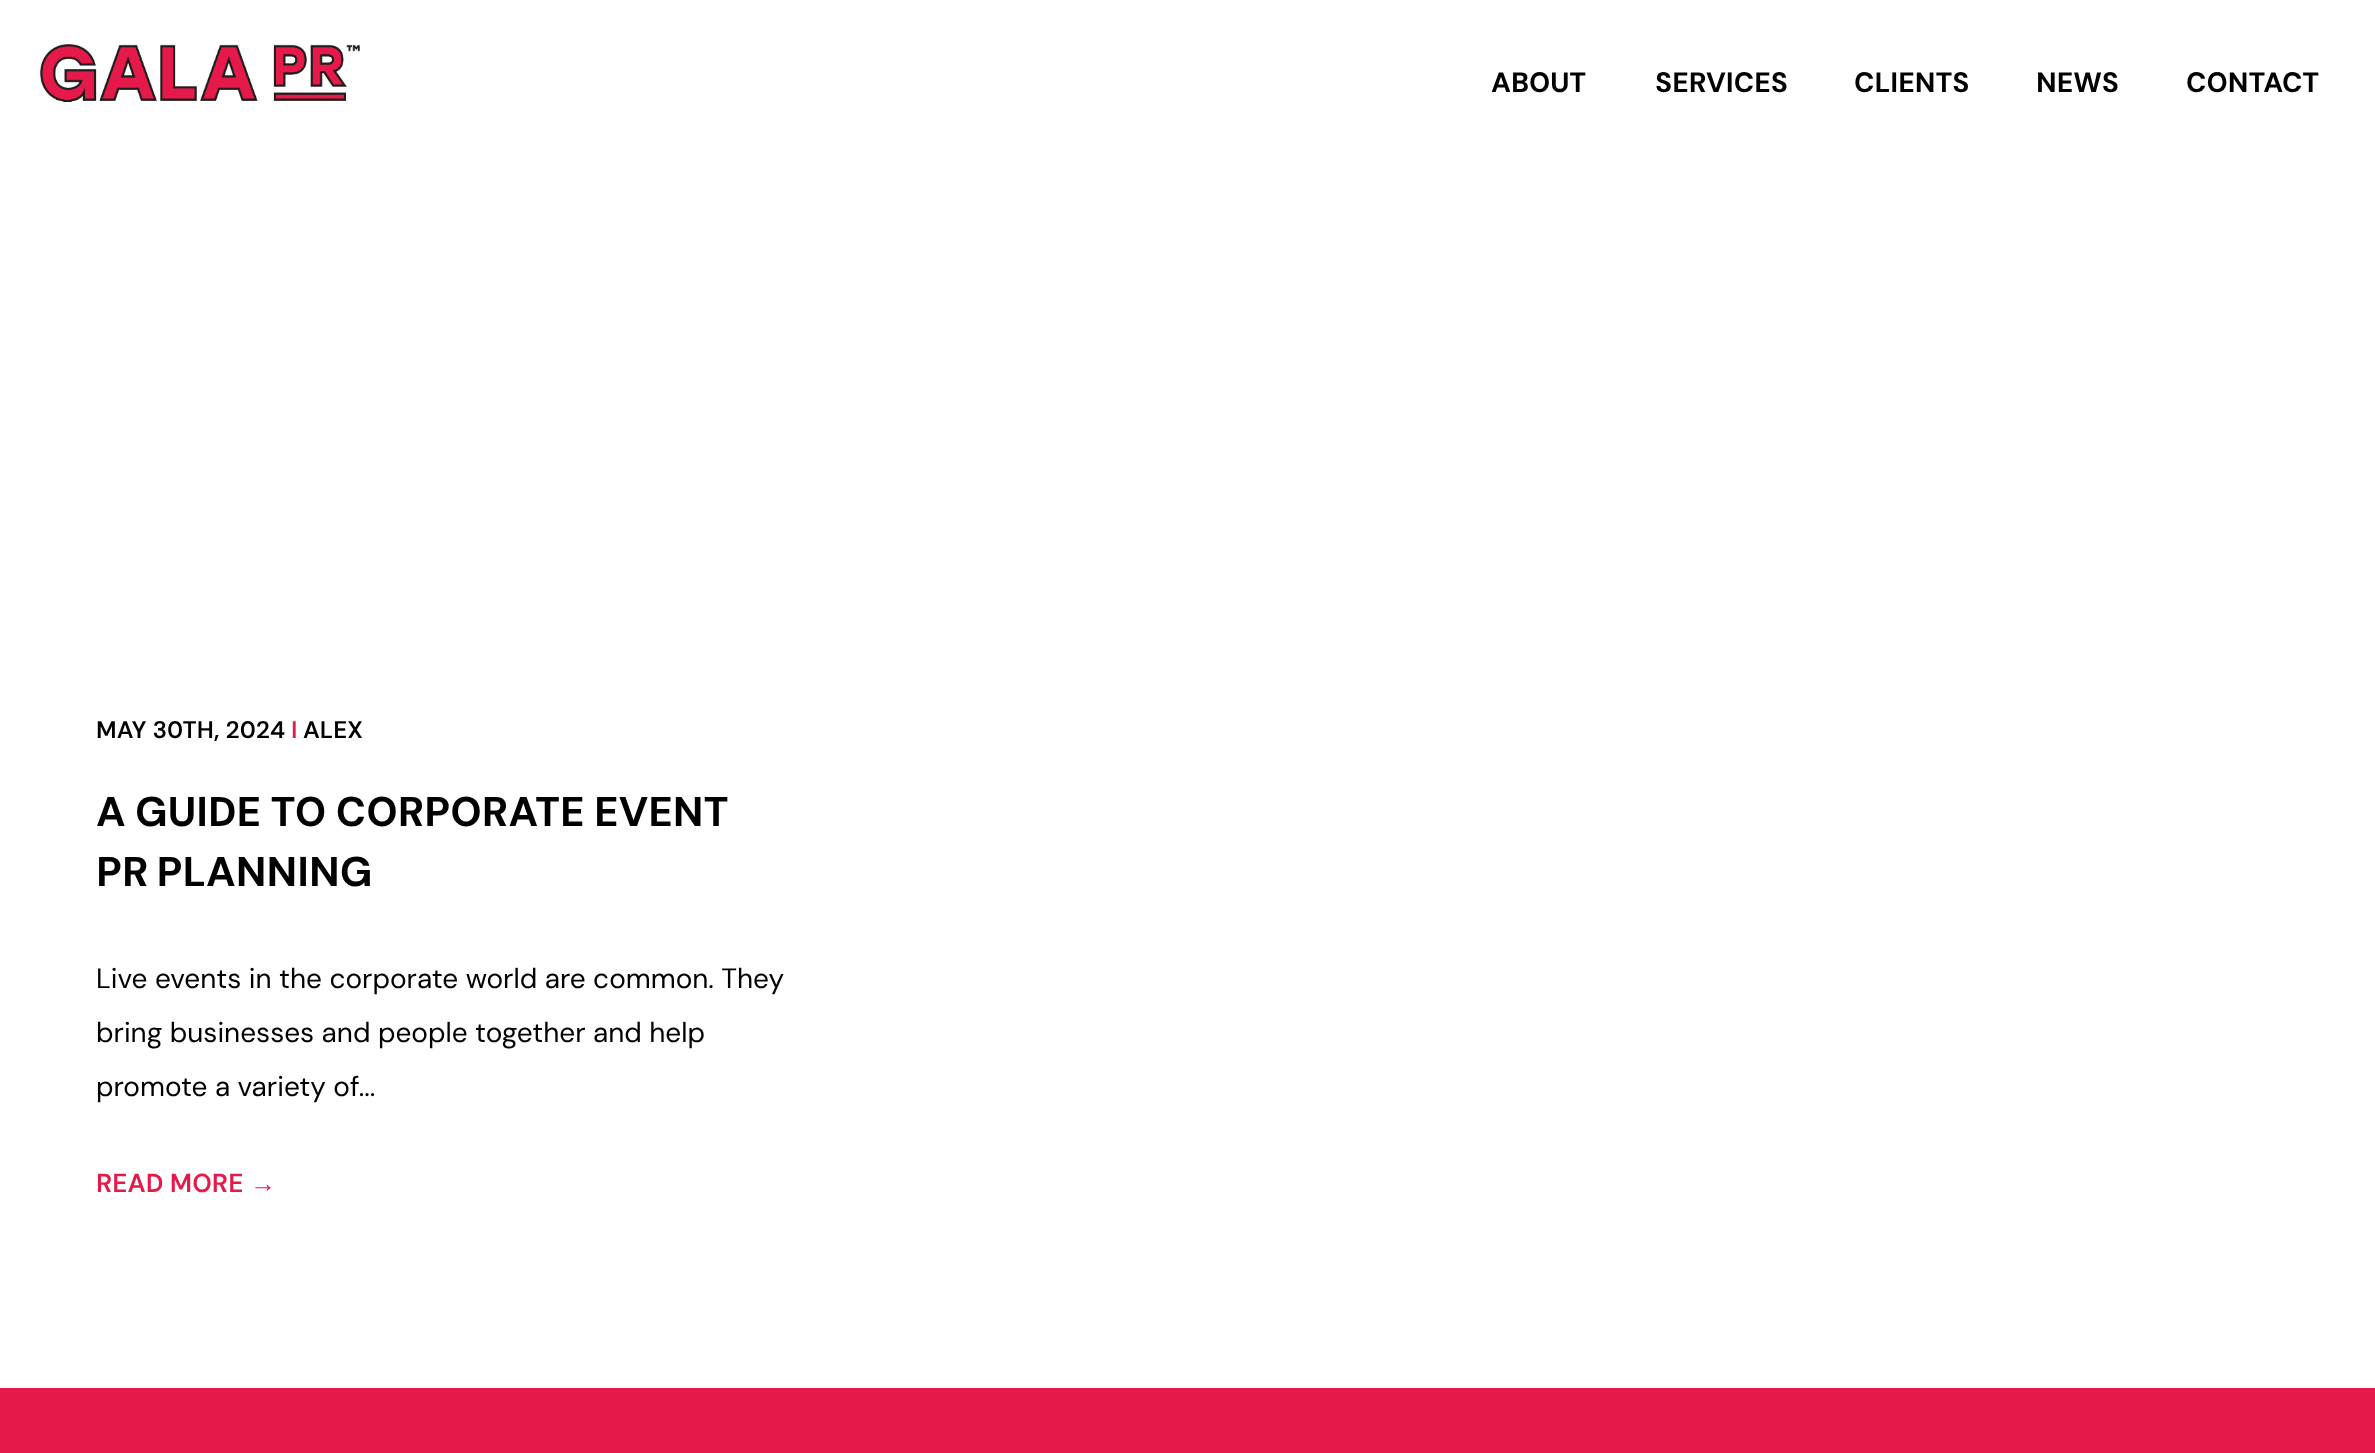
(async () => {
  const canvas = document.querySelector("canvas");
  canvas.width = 2375;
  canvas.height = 1453;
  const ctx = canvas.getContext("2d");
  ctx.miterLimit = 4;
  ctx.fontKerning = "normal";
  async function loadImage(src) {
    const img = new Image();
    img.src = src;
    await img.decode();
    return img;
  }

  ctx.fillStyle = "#ffffff";
  ctx.fillRect(0, 0, 2375, 1453);
  ctx.drawImage(await loadImage("img/1.png"), 40, 44, 320, 58);
  ctx.fillStyle = "#e5194a";
  ctx.fillRect(0, 1388, 2375, 65);
  ctx.font = "bold 28px DM Sans";
  ctx.fillStyle = "#000000";
  for (const [text, x, y] of [
    ["ABOUT", 1491, 92],
    ["SERVICES", 1655, 92],
    ["CLIENTS", 1854, 92],
    ["NEWS", 2036, 92],
    ["CONTACT", 2186, 92],
  ]) {
    ctx.fillText(text, x, y);
  }
  ctx.font = "600 24px DM Sans";
  ctx.fillText("MAY 30TH, 2024", 96, 738);
  ctx.fillStyle = "#e5194a";
  ctx.fillText("I", 291, 738);
  ctx.fillStyle = "#000000";
  ctx.fillText("ALEX", 303, 738);
  ctx.wordSpacing = "-0.5px";
  ctx.font = "bold 41.6px DM Sans";
  ctx.fillText("A GUIDE TO CORPORATE EVENT", 96, 826);
  ctx.wordSpacing = "-2px";
  ctx.fillText("PR PLANNING", 96, 886);
  ctx.wordSpacing = "0px";
  ctx.font = "28px DM Sans";
  for (const [text, x, y] of [
    ["Live events in the corporate world are common. They", 96, 988],
    ["bring businesses and people together and help", 96, 1042],
    ["promote a variety of...", 96, 1096],
  ]) {
    ctx.fillText(text, x, y);
  }
  ctx.font = "600 26px DM Sans";
  ctx.fillStyle = "#e5194a";
  ctx.fillText("READ MORE", 96, 1192);
  ctx.font = "bold 26px Liberation Sans";
  ctx.fillText("→", 250, 1192);
})();
